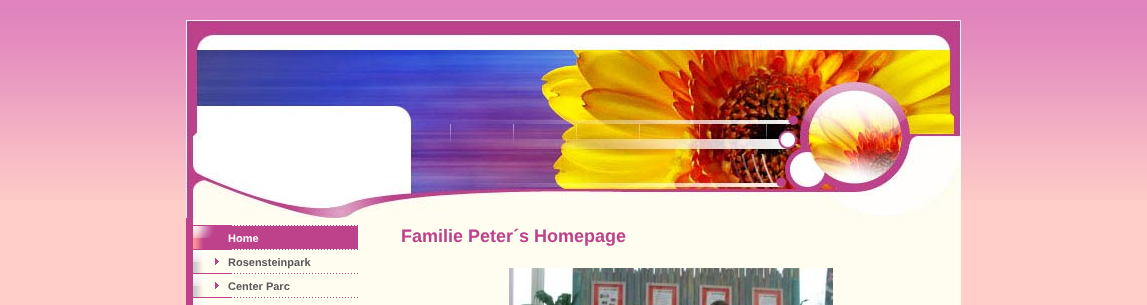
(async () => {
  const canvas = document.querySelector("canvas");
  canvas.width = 1147;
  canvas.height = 305;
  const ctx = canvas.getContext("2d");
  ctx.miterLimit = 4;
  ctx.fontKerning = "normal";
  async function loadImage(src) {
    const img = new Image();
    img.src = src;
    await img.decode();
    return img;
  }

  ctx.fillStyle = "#ffcec8";
  ctx.fillRect(0, 0, 1147, 305);
  ctx.drawImage(await loadImage("img/1.png"), 0, 0, 1147, 200);
  ctx.fillStyle = "#fffcf0";
  ctx.fillRect(193, 218, 768, 87);
  ctx.fillStyle = "#bd418b";
  ctx.fillRect(186, 218, 7, 87);
  ctx.drawImage(await loadImage("img/2.png"), 186, 20, 775, 198);
  ctx.drawImage(await loadImage("img/3.png"), 193, 225, 165, 1);
  ctx.drawImage(await loadImage("img/4.png"), 193, 226, 165, 24);
  ctx.drawImage(await loadImage("img/5.png"), 193, 250, 165, 24);
  ctx.drawImage(await loadImage("img/5.png"), 193, 274, 165, 24);
  ctx.drawImage(await loadImage("img/6.png"), 193, 298, 15, 7);
  ctx.drawImage(await loadImage("img/7.png"), 509, 268, 324, 37);
  ctx.font = "bold 11px Liberation Sans";
  ctx.fillStyle = "#ffffff";
  ctx.fillText("Home", 228, 242);
  ctx.fillStyle = "#595959";
  ctx.fillText("Rosensteinpark", 228, 266);
  ctx.fillText("Center Parc", 228, 290);
  ctx.font = "bold 18px Liberation Sans";
  ctx.fillStyle = "#bd418b";
  ctx.fillText("Familie Peter´s Homepage", 401, 242);
})();
